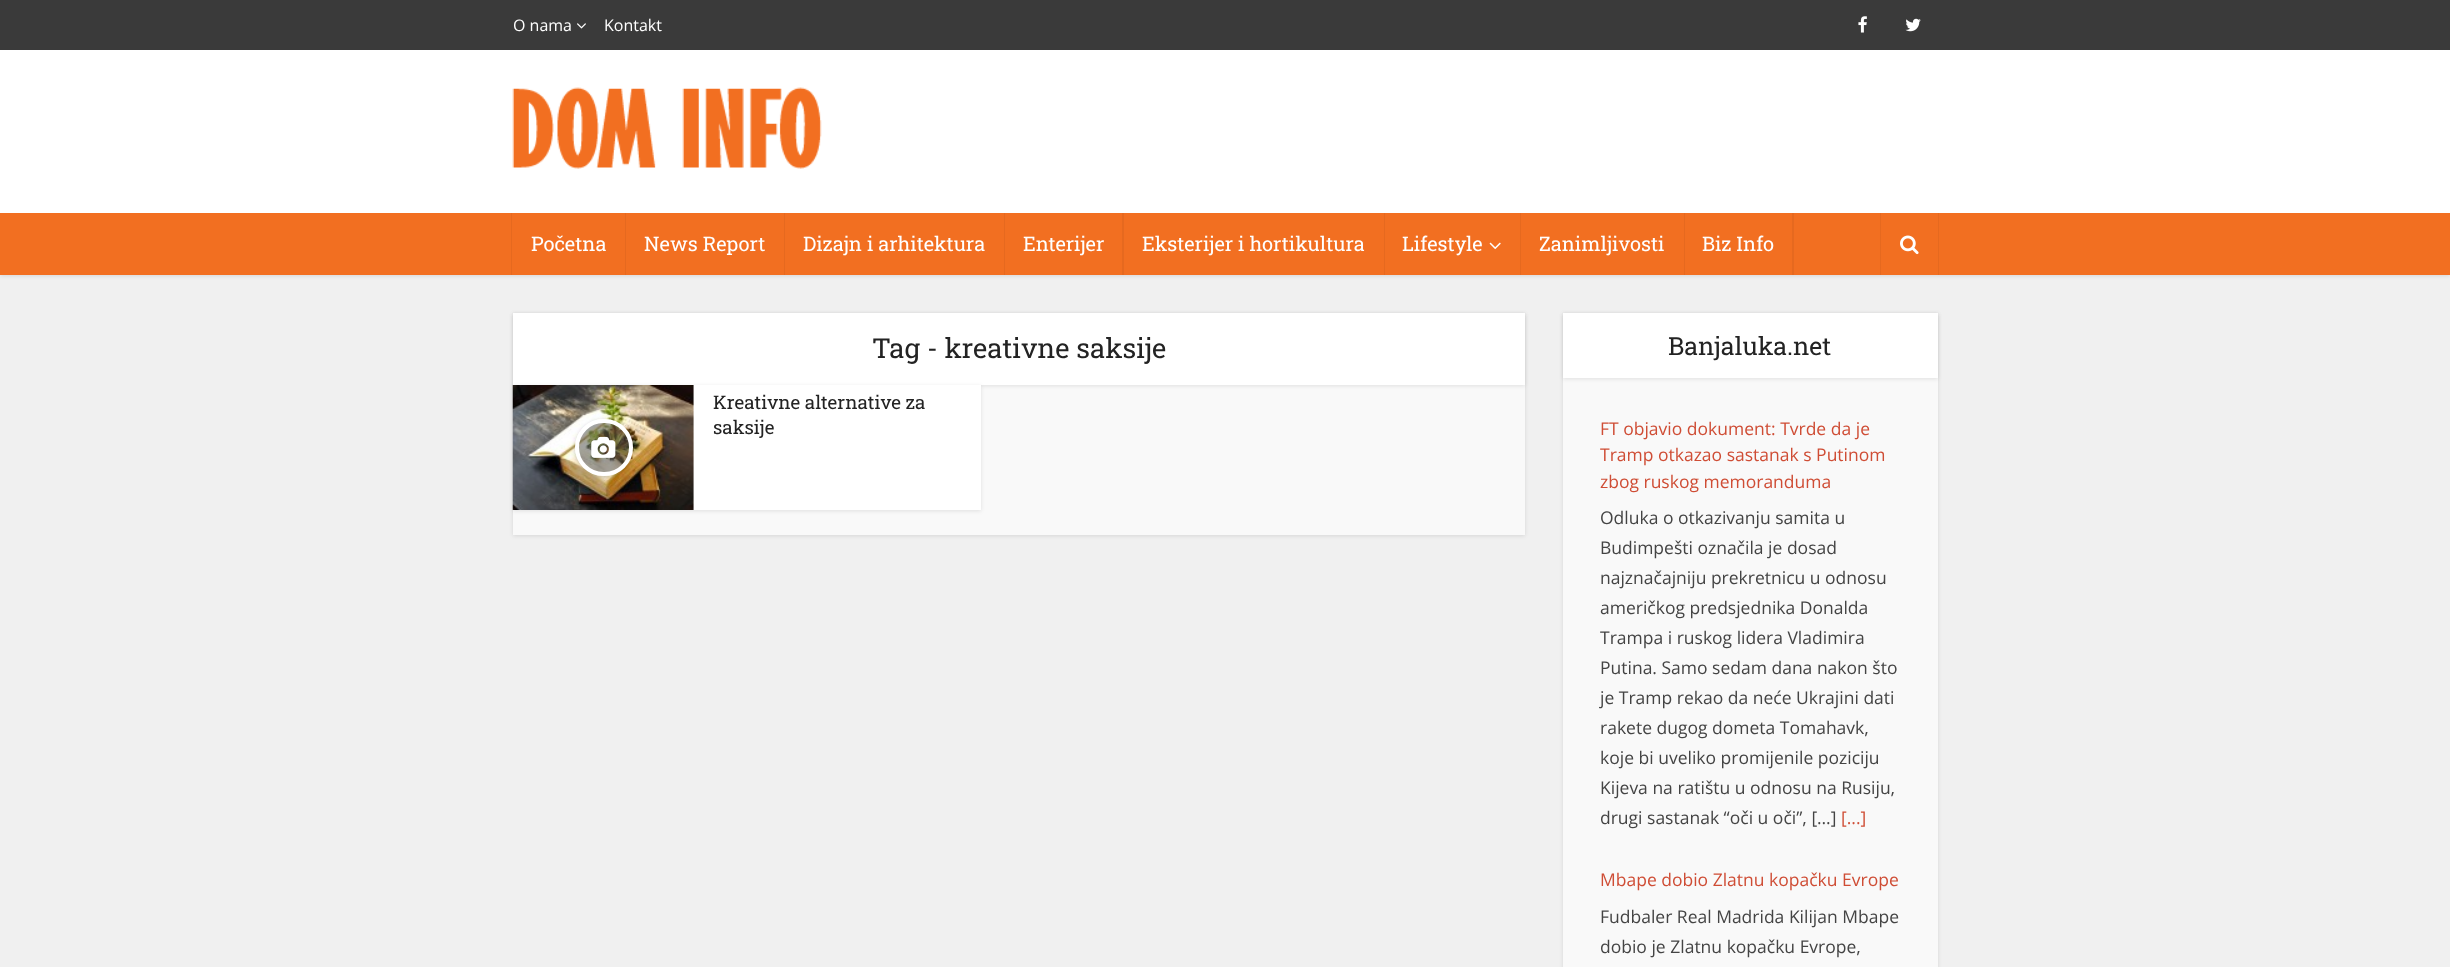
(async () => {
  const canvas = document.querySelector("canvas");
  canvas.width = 2450;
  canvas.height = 967;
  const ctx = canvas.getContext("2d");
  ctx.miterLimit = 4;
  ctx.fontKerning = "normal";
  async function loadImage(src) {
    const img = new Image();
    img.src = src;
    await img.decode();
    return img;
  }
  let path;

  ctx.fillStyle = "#f0f0f0";
  ctx.fillRect(0, 0, 2450, 967);
  ctx.fillStyle = "rgba(0, 0, 0, 0.1)";
  ctx.filter = "blur(2px)";
  ctx.beginPath();
  ctx.rect(0, 1, 2450, 275);
  ctx.fill();
  ctx.filter = "none";
  ctx.fillStyle = "#ffffff";
  ctx.fillRect(0, 50, 2450, 163);
  ctx.fillStyle = "#3a3a3a";
  ctx.fillRect(0, 0, 2450, 50);
  ctx.drawImage(await loadImage("img/1.png"), 577, 23, 9, 6);
  ctx.drawImage(await loadImage("img/2.png"), 1858, 16, 9, 17);
  ctx.drawImage(await loadImage("img/3.png"), 1905, 18, 16, 14);
  ctx.drawImage(await loadImage("img/4.png"), 512, 87, 310, 82);
  for (const [x, y, w, h, color] of [
    [0, 213, 2450, 62, "#f26f21"],
    [625, 213, 1, 62, "#e6691f"],
    [511, 213, 1, 62, "#e6691f"],
    [784, 213, 1, 62, "#e6691f"],
    [1004, 213, 1, 62, "#e6691f"],
    [1122, 213, 2, 62, "#e6691f"],
    [1384, 213, 1, 62, "#e6691f"],
    [1520, 213, 1, 62, "#e6691f"],
  ]) {
    ctx.fillStyle = color;
    ctx.fillRect(x, y, w, h);
  }
  ctx.drawImage(await loadImage("img/5.png"), 1489, 242, 12, 8);
  for (const [x, y, w, h, color] of [
    [1684, 213, 1, 62, "#e6691f"],
    [1792, 213, 2, 62, "#e6691f"],
    [1938, 213, 1, 62, "#e6691f"],
    [1880, 213, 1, 62, "#e6691f"],
  ]) {
    ctx.fillStyle = color;
    ctx.fillRect(x, y, w, h);
  }
  ctx.drawImage(await loadImage("img/6.png"), 1900, 235, 19, 20);
  ctx.fillStyle = "rgba(0, 0, 0, 0.1)";
  ctx.filter = "blur(2px)";
  ctx.beginPath();
  ctx.rect(513, 314, 1012, 222);
  ctx.fill();
  ctx.filter = "none";
  ctx.fillStyle = "#f9f9f9";
  ctx.fillRect(513, 385, 1012, 150);
  ctx.fillStyle = "rgba(0, 0, 0, 0.1)";
  ctx.filter = "blur(2px)";
  ctx.beginPath();
  ctx.rect(513, 314, 1012, 72);
  ctx.fill();
  ctx.filter = "none";
  ctx.fillStyle = "#ffffff";
  ctx.fillRect(513, 313, 1012, 72);
  ctx.fillStyle = "rgba(0, 0, 0, 0.1)";
  ctx.filter = "blur(2px)";
  ctx.beginPath();
  ctx.rect(513, 386, 468, 125);
  ctx.fill();
  ctx.filter = "none";
  ctx.fillStyle = "#ffffff";
  ctx.fillRect(693, 385, 288, 125);
  ctx.drawImage(await loadImage("img/7.png"), 512, 385, 182, 125);
  ctx.save();
  path = new Path2D("M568 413H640V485H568ZM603.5 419H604.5C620 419 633 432 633 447.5C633 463 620 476 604.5 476H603.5C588 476 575 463 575 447.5C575 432 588 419 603.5 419Z");
  ctx.clip(path, "evenodd");
  ctx.fillStyle = "rgba(0, 0, 0, 0.2)";
  ctx.filter = "blur(2px)";
  ctx.beginPath();
  ctx.roundRect(575, 420, 58, 58, 29);
  ctx.fill();
  ctx.filter = "none";
  ctx.restore();
  ctx.fillStyle = "rgba(74, 74, 74, 0.5)";
  ctx.beginPath();
  ctx.roundRect(577, 421, 54, 53, 26.5);
  ctx.fill();
  ctx.strokeStyle = "#ffffff";
  ctx.lineWidth = 4;
  ctx.stroke();
  ctx.drawImage(await loadImage("img/8.png"), 591, 436, 25, 22);
  ctx.fillStyle = "rgba(0, 0, 0, 0.1)";
  ctx.filter = "blur(2px)";
  ctx.beginPath();
  ctx.rect(1563, 314, 375, 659);
  ctx.fill();
  ctx.filter = "none";
  ctx.fillStyle = "#f9f9f9";
  ctx.fillRect(1563, 378, 375, 589);
  ctx.fillStyle = "rgba(0, 0, 0, 0.1)";
  ctx.filter = "blur(2px)";
  ctx.beginPath();
  ctx.rect(1563, 314, 375, 65);
  ctx.fill();
  ctx.filter = "none";
  ctx.fillStyle = "#ffffff";
  ctx.fillRect(1563, 313, 375, 65);
  ctx.font = "16px Open Sans";
  ctx.fillText("O nama", 513, 31);
  ctx.fillText("Kontakt", 604, 31);
  ctx.font = "20px Roboto Slab";
  for (const [text, x, y] of [
    ["Početna", 531, 251],
    ["News Report", 644, 251],
    ["Dizajn i arhitektura", 803, 251],
    ["Enterijer", 1023, 251],
    ["Eksterijer i hortikultura", 1142, 251],
    ["Lifestyle", 1402, 251],
    ["Zanimljivosti", 1539, 251],
    ["Biz Info", 1702, 251],
  ]) {
    ctx.fillText(text, x, y);
  }
  ctx.font = "27.5px Roboto Slab";
  ctx.fillStyle = "#232323";
  ctx.fillText("Tag - kreativne saksije", 872, 358);
  ctx.font = "18.75px Roboto Slab";
  ctx.fillText("Kreativne alternative za", 713, 409);
  ctx.fillText("saksije", 713, 434);
  ctx.font = "25px Roboto Slab";
  ctx.fillText("Banjaluka.net", 1668, 355);
  ctx.font = "17.5px Open Sans";
  ctx.fillStyle = "#cf4d35";
  for (const [text, x, y] of [
    ["FT objavio dokument: Tvrde da je", 1600, 435],
    ["Tramp otkazao sastanak s Putinom", 1600, 461],
    ["zbog ruskog memoranduma", 1600, 488],
  ]) {
    ctx.fillText(text, x, y);
  }
  ctx.fillStyle = "#444444";
  for (const [text, x, y] of [
    ["Odluka o otkazivanju samita u", 1600, 524],
    ["Budimpešti označila je dosad", 1600, 554],
    ["najznačajniju prekretnicu u odnosu", 1600, 584],
    ["američkog predsjednika Donalda", 1600, 614],
    ["Trampa i ruskog lidera Vladimira", 1600, 644],
    ["Putina. Samo sedam dana nakon što", 1600, 674],
    ["je Tramp rekao da neće Ukrajini dati", 1600, 704],
    ["rakete dugog dometa Tomahavk,", 1600, 734],
    ["koje bi uveliko promijenile poziciju", 1600, 764],
    ["Kijeva na ratištu u odnosu na Rusiju,", 1600, 794],
    ["drugi sastanak “oči u oči”, […]", 1600, 824],
  ]) {
    ctx.fillText(text, x, y);
  }
  ctx.fillStyle = "#cf4d35";
  ctx.fillText("[...]", 1841, 824);
  ctx.fillText("Mbape dobio Zlatnu kopačku Evrope", 1600, 886);
  ctx.fillStyle = "#444444";
  ctx.fillText("Fudbaler Real Madrida Kilijan Mbape", 1600, 923);
  ctx.fillText("dobio je Zlatnu kopačku Evrope,", 1600, 953);
})();
